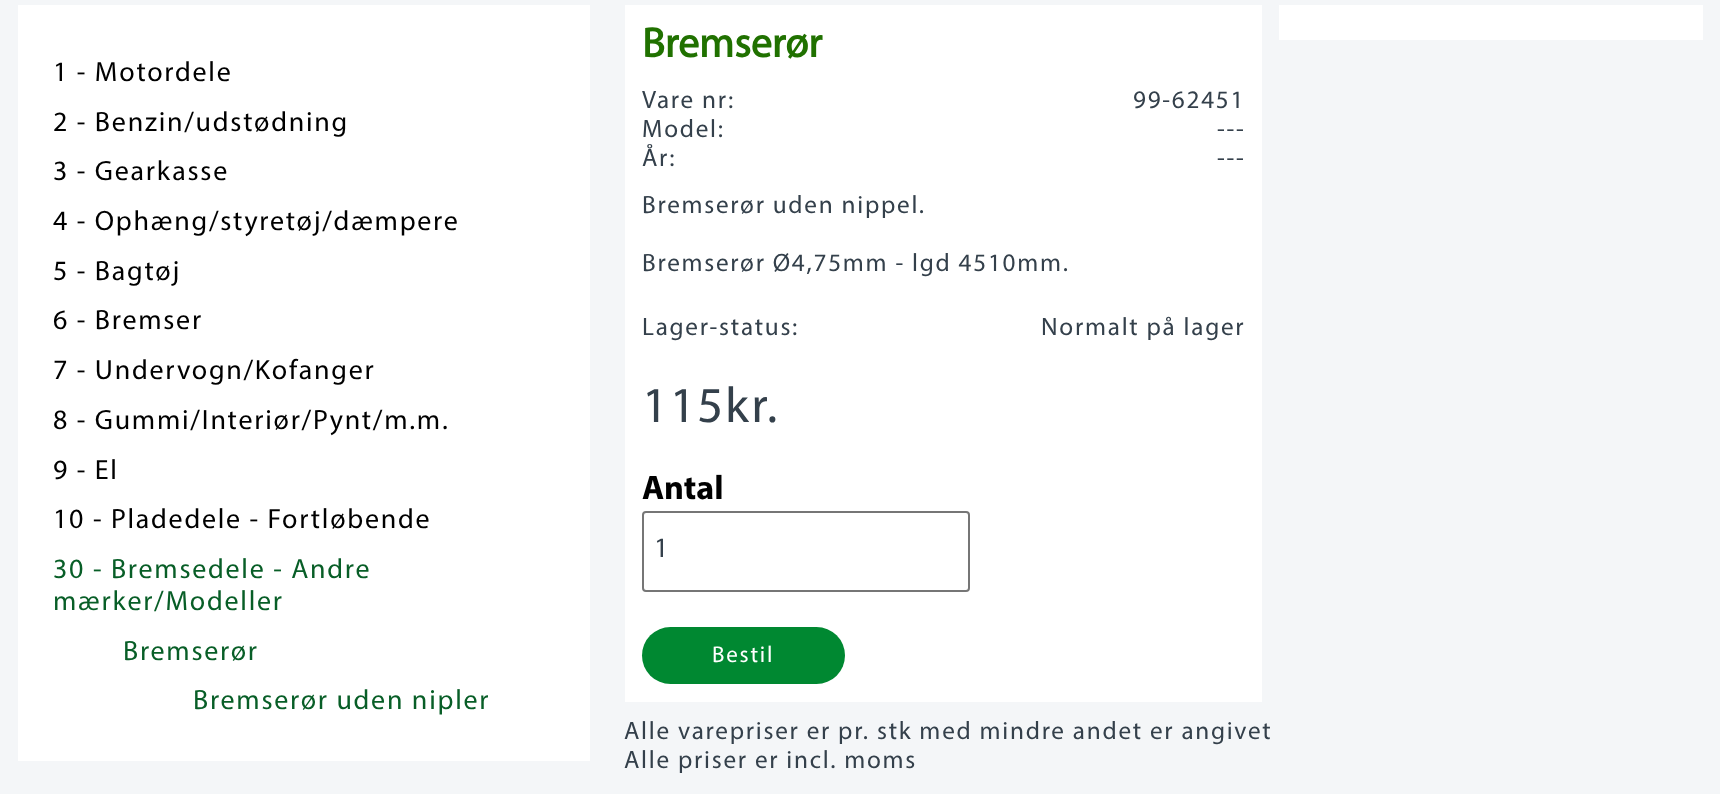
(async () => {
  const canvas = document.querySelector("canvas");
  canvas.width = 1720;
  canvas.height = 794;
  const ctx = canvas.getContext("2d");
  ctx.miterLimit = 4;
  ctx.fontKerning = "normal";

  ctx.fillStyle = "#f4f6f8";
  ctx.fillRect(0, 0, 1720, 794);
  for (const [x, y, w, h, color] of [
    [18, 5, 572, 756, "#ffffff"],
    [1279, 5, 424, 35, "#ffffff"],
    [625, 5, 637, 697, "#ffffff"],
  ]) {
    ctx.fillStyle = color;
    ctx.fillRect(x, y, w, h);
  }
  ctx.beginPath();
  ctx.roundRect(643, 512, 326, 79, 3);
  ctx.strokeStyle = "#767676";
  ctx.lineWidth = 2;
  ctx.stroke();
  ctx.fillStyle = "#008831";
  ctx.beginPath();
  ctx.roundRect(642, 627, 203, 57, 28.5);
  ctx.fill();
  ctx.letterSpacing = "1.75px";
  ctx.font = "28px Myriad";
  ctx.fillStyle = "#000000";
  for (const [text, x, y] of [
    ["1 - Motordele", 53, 81],
    ["2 - Benzin/udstødning", 53, 131],
    ["3 - Gearkasse", 53, 180],
    ["4 - Ophæng/styretøj/dæmpere", 53, 230],
    ["5 - Bagtøj", 53, 280],
    ["6 - Bremser", 53, 329],
    ["7 - Undervogn/Kofanger", 53, 379],
    ["8 - Gummi/Interiør/Pynt/m.m.", 53, 429],
    ["9 - El", 53, 479],
    ["10 - Pladedele - Fortløbende", 53, 528],
  ]) {
    ctx.fillText(text, x, y);
  }
  ctx.fillStyle = "#085e27";
  for (const [text, x, y] of [
    ["30 - Bremsedele - Andre", 53, 578],
    ["mærker/Modeller", 53, 610],
    ["Bremserør", 123, 660],
    ["Bremserør uden nipler", 193, 709],
  ]) {
    ctx.fillText(text, x, y);
  }
  ctx.letterSpacing = "0px";
  ctx.font = "bold 42px 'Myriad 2'";
  ctx.fillStyle = "#207100";
  ctx.fillText("Bremserør", 642, 57);
  ctx.letterSpacing = "1.75px";
  ctx.font = "25.2px Myriad";
  ctx.fillStyle = "#34404b";
  for (const [text, x, y] of [
    ["Vare nr:", 642, 108],
    ["99-62451", 1133, 108],
    ["Model:", 642, 137],
    ["---", 1217, 137],
    ["År:", 642, 166],
    ["---", 1217, 166],
    ["Bremserør uden nippel.", 642, 213],
    ["Bremserør Ø4,75mm - lgd 4510mm.", 642, 271],
    ["Lager-status:", 642, 335],
    ["Normalt på lager", 1041, 335],
  ]) {
    ctx.fillText(text, x, y);
  }
  ctx.font = "50.5px Myriad";
  ctx.fillText("115kr.", 642, 422);
  ctx.letterSpacing = "0px";
  ctx.font = "bold 34px Myriad";
  ctx.fillStyle = "#000000";
  ctx.fillText("Antal", 642, 499);
  ctx.font = "28px Myriad";
  ctx.fillStyle = "#34404b";
  ctx.fillText("1", 654, 557);
  ctx.letterSpacing = "1.75px";
  ctx.font = "23px Myriad";
  ctx.fillStyle = "#ffffff";
  ctx.fillText("Bestil", 712, 662);
  ctx.font = "25.2px Myriad";
  ctx.fillStyle = "#34404b";
  ctx.fillText("Alle varepriser er pr. stk med mindre andet er angivet", 624, 739);
  ctx.fillText("Alle priser er incl. moms", 624, 768);
})();
